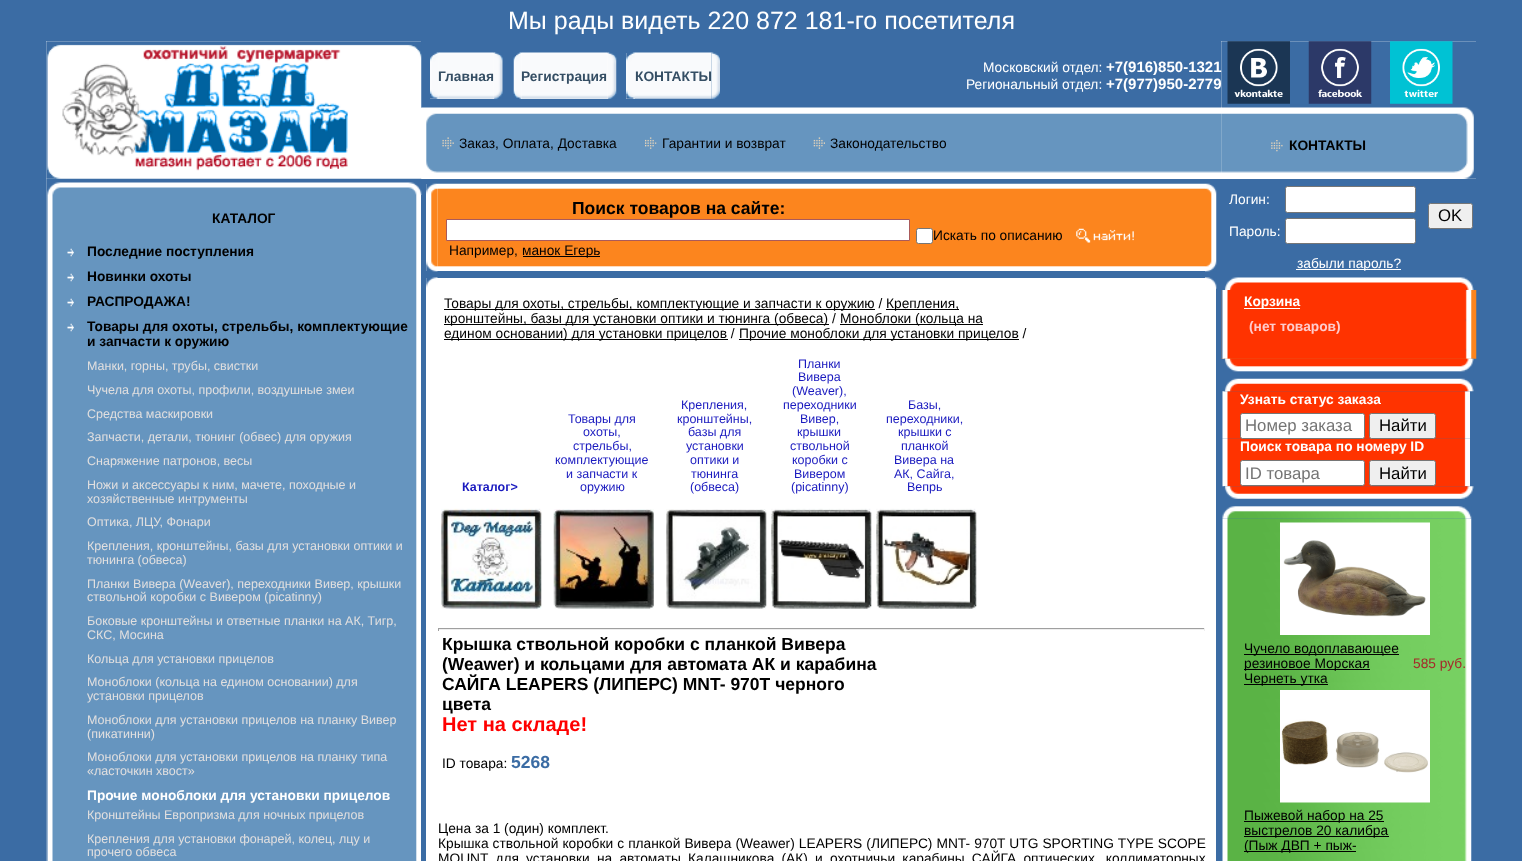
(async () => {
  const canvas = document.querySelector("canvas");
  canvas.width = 1522;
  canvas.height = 861;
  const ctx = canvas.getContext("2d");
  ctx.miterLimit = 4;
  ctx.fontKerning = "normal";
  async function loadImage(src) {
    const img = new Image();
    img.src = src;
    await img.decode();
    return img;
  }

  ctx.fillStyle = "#3b6ca4";
  ctx.fillRect(0, 0, 1522, 861);
  ctx.fillStyle = "#ffffff";
  ctx.fillRect(46, 41, 1430, 138);
  ctx.fillStyle = "#3b6ca4";
  ctx.fillRect(421, 41, 800, 67);
  ctx.drawImage(await loadImage("img/11.png"), 1221, 41, 255, 138);
  ctx.drawImage(await loadImage("img/16.png"), 421, 107, 801, 66);
  ctx.drawImage(await loadImage("img/1.png"), 46, 41, 376, 138);
  ctx.fillStyle = "#ffffff";
  ctx.fillRect(430, 53, 64, 46);
  ctx.drawImage(await loadImage("img/2.png"), 430, 52, 9, 47);
  ctx.drawImage(await loadImage("img/8.png"), 438, 52, 56, 47);
  ctx.drawImage(await loadImage("img/3.png"), 493, 52, 10, 47);
  ctx.drawImage(await loadImage("img/4.png"), 513, 52, 9, 47);
  ctx.fillRect(521, 53, 87, 46);
  ctx.drawImage(await loadImage("img/9.png"), 521, 52, 87, 47);
  ctx.drawImage(await loadImage("img/5.png"), 607, 52, 10, 47);
  ctx.fillRect(626, 53, 9, 46);
  ctx.drawImage(await loadImage("img/6.png"), 626, 52, 9, 47);
  ctx.drawImage(await loadImage("img/10.png"), 635, 52, 77, 47);
  ctx.fillStyle = "#3b6ca4";
  ctx.fillRect(711, 53, 1, 46);
  ctx.drawImage(await loadImage("img/7.png"), 711, 52, 9, 47);
  ctx.drawImage(await loadImage("img/12.png"), 1227, 41, 63, 63);
  ctx.drawImage(await loadImage("img/13.png"), 1308, 41, 64, 63);
  ctx.drawImage(await loadImage("img/14.png"), 1390, 41, 63, 63);
  ctx.drawImage(await loadImage("img/15.png"), 1271, 140, 12, 12);
  ctx.drawImage(await loadImage("img/17.png"), 442, 137, 12, 12);
  ctx.drawImage(await loadImage("img/18.png"), 645, 137, 12, 12);
  ctx.drawImage(await loadImage("img/19.png"), 813, 137, 12, 12);
  ctx.fillStyle = "#ffffff";
  ctx.fillRect(46, 179, 375, 682);
  ctx.drawImage(await loadImage("img/20.png"), 46, 178, 376, 17);
  ctx.drawImage(await loadImage("img/21.png"), 46, 195, 371, 45);
  ctx.drawImage(await loadImage("img/22.png"), 46, 240, 371, 621);
  ctx.drawImage(await loadImage("img/23.png"), 67, 248, 7, 9);
  ctx.drawImage(await loadImage("img/23.png"), 67, 273, 7, 9);
  ctx.drawImage(await loadImage("img/23.png"), 67, 298, 7, 9);
  ctx.drawImage(await loadImage("img/23.png"), 67, 323, 7, 9);
  ctx.fillRect(426, 184, 790, 677);
  ctx.drawImage(await loadImage("img/25.png"), 437, 183, 768, 84);
  ctx.fillStyle = "#3b6ca4";
  ctx.fillRect(426, 271, 790, 7);
  ctx.drawImage(await loadImage("img/24.png"), 426, 183, 12, 89);
  ctx.fillStyle = "#ffffff";
  ctx.beginPath();
  ctx.rect(446.5, 219.5, 463, 21);
  ctx.fill();
  ctx.strokeStyle = "#aa5a5a";
  ctx.stroke();
  ctx.fillStyle = "#000000";
  ctx.fillRect(523, 256, 77, 1);
  ctx.fillStyle = "#ffffff";
  ctx.beginPath();
  ctx.roundRect(916.5, 228.5, 16, 15, 2);
  ctx.fill();
  ctx.strokeStyle = "#767676";
  ctx.stroke();
  ctx.drawImage(await loadImage("img/26.png"), 1076, 228, 58, 15);
  ctx.drawImage(await loadImage("img/27.png"), 1205, 183, 12, 89);
  ctx.drawImage(await loadImage("img/28.png"), 426, 277, 12, 11);
  ctx.drawImage(await loadImage("img/29.png"), 1205, 277, 12, 12);
  for (const [x, y, w, h, color] of [
    [444, 309, 431, 1, "#000000"],
    [886, 309, 73, 1, "#000000"],
    [444, 324, 385, 1, "#000000"],
    [840, 324, 143, 1, "#000000"],
    [444, 339, 284, 1, "#000000"],
    [739, 339, 280, 1, "#000000"],
  ]) {
    ctx.fillStyle = color;
    ctx.fillRect(x, y, w, h);
  }
  ctx.drawImage(await loadImage("img/30.png"), 441, 508, 101, 101);
  ctx.drawImage(await loadImage("img/31.png"), 553, 509, 101, 100);
  ctx.drawImage(await loadImage("img/32.png"), 666, 509, 101, 100);
  ctx.drawImage(await loadImage("img/33.png"), 771, 508, 101, 101);
  ctx.drawImage(await loadImage("img/34.png"), 876, 508, 101, 101);
  for (const [x, y, w, h, color] of [
    [438, 628, 767, 1, "#9f9f9f"],
    [1204, 628, 1, 3, "#eeeeee"],
    [438, 629, 767, 1, "#eeeeee"],
    [438, 628, 1, 3, "#9f9f9f"],
  ]) {
    ctx.fillStyle = color;
    ctx.fillRect(x, y, w, h);
  }
  ctx.fillStyle = "#ffffff";
  ctx.beginPath();
  ctx.roundRect(1285.5, 186.5, 130, 26, 2);
  ctx.fill();
  ctx.stroke();
  ctx.beginPath();
  ctx.roundRect(1285.5, 218.5, 130, 25, 2);
  ctx.fill();
  ctx.stroke();
  ctx.fillStyle = "#efefef";
  ctx.beginPath();
  ctx.roundRect(1428.5, 203.5, 44, 25, 2);
  ctx.fill();
  ctx.stroke();
  ctx.fillStyle = "#ffffff";
  ctx.fillRect(1296, 269, 105, 1);
  ctx.drawImage(await loadImage("img/35.png"), 1224, 277, 250, 13);
  ctx.drawImage(await loadImage("img/36.png"), 1221, 290, 256, 69);
  ctx.fillRect(1244, 308, 56, 1);
  ctx.drawImage(await loadImage("img/37.png"), 1223, 358, 251, 14);
  ctx.drawImage(await loadImage("img/39.png"), 1222, 391, 248, 48);
  ctx.drawImage(await loadImage("img/38.png"), 1223, 378, 251, 14);
  ctx.drawImage(await loadImage("img/40.png"), 1222, 438, 248, 49);
  ctx.beginPath();
  ctx.roundRect(1240.5, 413.5, 124, 25, 2);
  ctx.fill();
  ctx.stroke();
  ctx.fillStyle = "#efefef";
  ctx.beginPath();
  ctx.roundRect(1369.5, 413.5, 66, 25, 2);
  ctx.fill();
  ctx.stroke();
  ctx.fillStyle = "#ffffff";
  ctx.beginPath();
  ctx.roundRect(1240.5, 460.5, 124, 25, 2);
  ctx.fill();
  ctx.stroke();
  ctx.fillStyle = "#efefef";
  ctx.beginPath();
  ctx.roundRect(1369.5, 460.5, 66, 25, 2);
  ctx.fill();
  ctx.stroke();
  ctx.drawImage(await loadImage("img/41.png"), 1223, 486, 251, 13);
  ctx.drawImage(await loadImage("img/43.png"), 1222, 518, 250, 343);
  ctx.drawImage(await loadImage("img/42.png"), 1222, 506, 250, 13);
  ctx.drawImage(await loadImage("img/44.png"), 1280, 522, 150, 113);
  for (const [x, y, w, h, color] of [
    [1244, 654, 155, 1, "#000000"],
    [1244, 669, 126, 1, "#000000"],
    [1244, 684, 84, 1, "#000000"],
  ]) {
    ctx.fillStyle = color;
    ctx.fillRect(x, y, w, h);
  }
  ctx.drawImage(await loadImage("img/45.png"), 1280, 690, 150, 113);
  for (const [x, y, w, h, color] of [
    [1244, 821, 140, 1, "#000000"],
    [1244, 836, 145, 1, "#000000"],
    [1244, 851, 112, 1, "#000000"],
  ]) {
    ctx.fillStyle = color;
    ctx.fillRect(x, y, w, h);
  }
  ctx.font = "25px Liberation Sans";
  ctx.fillStyle = "#ffffff";
  ctx.fillText("Мы рады видеть 220 872 181-го посетителя", 508, 29);
  ctx.font = "13.75px Liberation Sans";
  ctx.fillText("Московский отдел:", 983, 72);
  ctx.font = "bold 15px Liberation Sans";
  ctx.fillText("+7(916)850-1321", 1106, 72);
  ctx.font = "13.75px Liberation Sans";
  ctx.fillText("Региональный отдел:", 966, 89);
  ctx.font = "bold 15px Liberation Sans";
  ctx.fillText("+7(977)950-2779", 1106, 89);
  ctx.font = "bold 13.75px Liberation Sans";
  ctx.fillStyle = "#354e64";
  for (const [text, x, y] of [
    ["Главная", 438, 81],
    ["Регистрация", 521, 81],
    ["КОНТАКТЫ", 635, 81],
  ]) {
    ctx.fillText(text, x, y);
  }
  ctx.fillStyle = "#000000";
  ctx.fillText("КОНТАКТЫ", 1289, 150);
  ctx.font = "13.75px Liberation Sans";
  for (const [text, x, y] of [
    ["Заказ, Оплата, Доставка", 459, 148],
    ["Гарантии и возврат", 662, 148],
    ["Законодательство", 830, 148],
  ]) {
    ctx.fillText(text, x, y);
  }
  ctx.font = "bold 13.75px Liberation Sans";
  for (const [text, x, y] of [
    ["КАТАЛОГ", 212, 223],
    ["Последние поступления", 87, 256],
    ["Новинки охоты", 87, 281],
    ["РАСПРОДАЖА!", 87, 306],
    ["Товары для охоты, стрельбы, комплектующие", 87, 331],
    ["и запчасти к оружию", 87, 346],
  ]) {
    ctx.fillText(text, x, y);
  }
  ctx.font = "12.5px Liberation Sans";
  ctx.fillStyle = "#e1dfdf";
  for (const [text, x, y] of [
    ["Манки, горны, трубы, свистки", 87, 370],
    ["Чучела для охоты, профили, воздушные змеи", 87, 394],
    ["Средства маскировки", 87, 418],
    ["Запчасти, детали, тюнинг (обвес) для оружия", 87, 441],
    ["Снаряжение патронов, весы", 87, 465],
    ["Ножи и аксессуары к ним, мачете, походные и", 87, 489],
    ["хозяйственные интрументы", 87, 503],
    ["Оптика, ЛЦУ, Фонари", 87, 526],
    ["Крепления, кронштейны, базы для установки оптики и", 87, 550],
    ["тюнинга (обвеса)", 87, 564],
    ["Планки Вивера (Weaver), переходники Вивер, крышки", 87, 588],
    ["ствольной коробки с Вивером (picatinny)", 87, 601],
    ["Боковые кронштейны и ответные планки на АК, Тигр,", 87, 625],
    ["СКС, Мосина", 87, 639],
    ["Кольца для установки прицелов", 87, 663],
    ["Моноблоки (кольца на едином основании) для", 87, 686],
    ["установки прицелов", 87, 700],
    ["Моноблоки для установки прицелов на планку Вивер", 87, 724],
    ["(пикатинни)", 87, 738],
    ["Моноблоки для установки прицелов на планку типа", 87, 761],
    ["«ласточкин хвост»", 87, 775],
  ]) {
    ctx.fillText(text, x, y);
  }
  ctx.font = "bold 13.75px Liberation Sans";
  ctx.fillStyle = "#ffffff";
  ctx.fillText("Прочие моноблоки для установки прицелов", 87, 800);
  ctx.font = "12.5px Liberation Sans";
  ctx.fillStyle = "#e1dfdf";
  for (const [text, x, y] of [
    ["Кронштейны Европризма для ночных прицелов", 87, 819],
    ["Крепления для установки фонарей, колец, лцу и", 87, 843],
    ["прочего обвеса", 87, 856],
  ]) {
    ctx.fillText(text, x, y);
  }
  ctx.font = "bold 17.5px Liberation Sans";
  ctx.fillStyle = "#000000";
  ctx.fillText("Поиск товаров на сайте:", 572, 214);
  ctx.font = "13.75px Liberation Sans";
  for (const [text, x, y] of [
    ["Например,", 449, 255],
    ["манок Егерь", 522, 255],
    ["Искать по описанию", 933, 240],
    ["Товары для охоты, стрельбы, комплектующие и запчасти к оружию /", 444, 308],
    ["Крепления,", 886, 308],
    ["кронштейны, базы для установки оптики и тюнинга (обвеса) /", 444, 323],
    ["Моноблоки (кольца на", 840, 323],
    ["едином основании) для установки прицелов /", 444, 338],
    ["Прочие моноблоки для установки прицелов /", 739, 338],
  ]) {
    ctx.fillText(text, x, y);
  }
  ctx.font = "bold 12.5px Liberation Sans";
  ctx.fillStyle = "#1a1abf";
  ctx.fillText("Каталог>", 462, 491);
  ctx.font = "12.5px Liberation Sans";
  for (const [text, x, y] of [
    ["Товары для", 568, 423],
    ["охоты,", 583, 436],
    ["стрельбы,", 573, 450],
    ["комплектующие", 555, 464],
    ["и запчасти к", 566, 478],
    ["оружию", 580, 491],
    ["Крепления,", 681, 409],
    ["кронштейны,", 677, 423],
    ["базы для", 688, 436],
    ["установки", 686, 450],
    ["оптики и", 690, 464],
    ["тюнинга", 691, 478],
    ["(обвеса)", 690, 491],
    ["Планки", 798, 368],
    ["Вивера", 798, 381],
    ["(Weaver),", 792, 395],
    ["переходники", 783, 409],
    ["Вивер,", 800, 423],
    ["крышки", 797, 436],
    ["ствольной", 790, 450],
    ["коробки с", 792, 464],
    ["Вивером", 794, 478],
    ["(picatinny)", 791, 491],
    ["Базы,", 908, 409],
    ["переходники,", 886, 423],
    ["крышки с", 898, 436],
    ["планкой", 901, 450],
    ["Вивера на", 894, 464],
    ["АК, Сайга,", 894, 478],
    ["Вепрь", 907, 491],
  ]) {
    ctx.fillText(text, x, y);
  }
  ctx.font = "bold 17.5px Liberation Sans";
  ctx.fillStyle = "#000000";
  for (const [text, x, y] of [
    ["Крышка ствольной коробки с планкой Вивера", 442, 650],
    ["(Weawer) и кольцами для автомата АК и карабина", 442, 670],
    ["САЙГА LEAPERS (ЛИПЕРС) MNT- 970T черного", 442, 690],
    ["цвета", 442, 710],
  ]) {
    ctx.fillText(text, x, y);
  }
  ctx.font = "bold 20px Liberation Sans";
  ctx.fillStyle = "#ff0000";
  ctx.fillText("Нет на складе!", 442, 731);
  ctx.font = "13.75px Liberation Sans";
  ctx.fillStyle = "#000000";
  ctx.fillText("ID товара:", 442, 768);
  ctx.font = "bold 17.5px Liberation Sans";
  ctx.fillStyle = "#3b6ca4";
  ctx.fillText("5268", 511, 768);
  ctx.font = "13.75px Liberation Sans";
  ctx.fillStyle = "#000000";
  ctx.fillText("Цена за 1 (один) комплект.", 438, 833);
  ctx.wordSpacing = "0.25px";
  ctx.fillText("Крышка ствольной коробки с планкой Вивера (Weawer) LEAPERS (ЛИПЕРС) MNT- 970T UTG SPORTING TYPE SCOPE", 438, 848);
  ctx.wordSpacing = "3.4px";
  ctx.fillText("MOUNT для установки на автоматы Калашникова (АК) и охотничьи карабины САЙГА оптических, коллиматорных", 438, 863);
  ctx.wordSpacing = "0px";
  ctx.fillStyle = "#ffffff";
  ctx.fillText("Логин:", 1229, 204);
  ctx.fillText("Пароль:", 1229, 236);
  ctx.font = "16.75px Liberation Sans";
  ctx.fillStyle = "#000000";
  ctx.fillText("OK", 1438, 221);
  ctx.font = "13.75px Liberation Sans";
  ctx.fillStyle = "#ffffff";
  ctx.fillText("забыли пароль?", 1297, 268);
  ctx.font = "bold 13.75px Liberation Sans";
  ctx.fillText("Корзина", 1244, 306);
  ctx.fillStyle = "#ffcccc";
  ctx.fillText("(нет товаров)", 1249, 331);
  ctx.fillStyle = "#ffffff";
  ctx.fillText("Узнать статус заказа", 1240, 404);
  ctx.font = "16.75px Liberation Sans";
  ctx.fillStyle = "#757575";
  ctx.fillText("Номер заказа", 1245, 431);
  ctx.fillStyle = "#000000";
  ctx.fillText("Найти", 1379, 431);
  ctx.font = "bold 13.75px Liberation Sans";
  ctx.fillStyle = "#ffffff";
  ctx.fillText("Поиск товара по номеру ID", 1240, 451);
  ctx.font = "16.75px Liberation Sans";
  ctx.fillStyle = "#757575";
  ctx.fillText("ID товара", 1245, 479);
  ctx.fillStyle = "#000000";
  ctx.fillText("Найти", 1379, 479);
  ctx.font = "13.75px Liberation Sans";
  for (const [text, x, y] of [
    ["Чучело водоплавающее", 1244, 653],
    ["резиновое Морская", 1244, 668],
    ["Чернеть утка", 1244, 683],
  ]) {
    ctx.fillText(text, x, y);
  }
  ctx.fillStyle = "#a52a2a";
  ctx.fillText("585 руб.", 1413, 668);
  ctx.fillStyle = "#000000";
  for (const [text, x, y] of [
    ["Пыжевой набор на 25", 1244, 820],
    ["выстрелов 20 калибра", 1244, 835],
    ["(Пыж ДВП + пыж-", 1244, 850],
  ]) {
    ctx.fillText(text, x, y);
  }
})();
